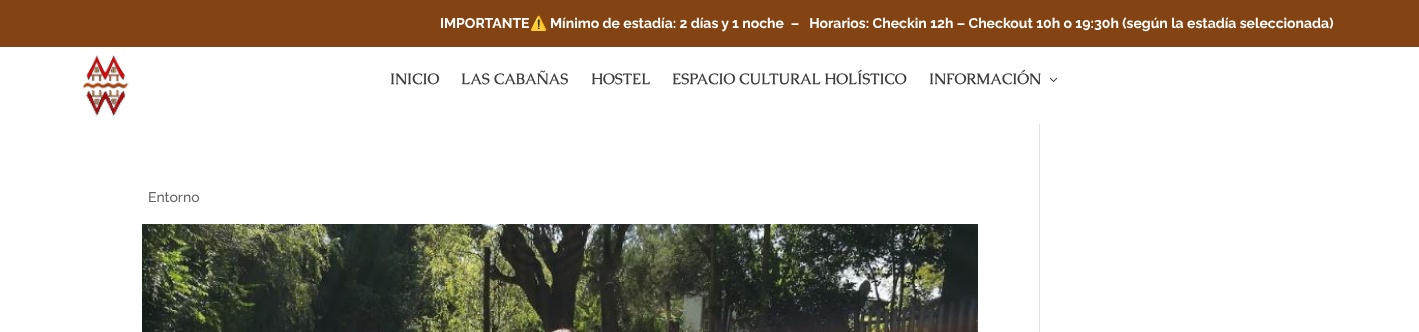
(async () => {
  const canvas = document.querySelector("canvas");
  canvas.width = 1419;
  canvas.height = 332;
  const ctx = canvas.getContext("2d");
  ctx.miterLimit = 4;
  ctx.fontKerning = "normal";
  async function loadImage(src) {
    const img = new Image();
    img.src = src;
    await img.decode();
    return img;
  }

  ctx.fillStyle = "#ffffff";
  ctx.fillRect(0, 0, 1419, 332);
  ctx.fillStyle = "#844312";
  ctx.fillRect(0, 0, 1419, 47);
  ctx.drawImage(await loadImage("img/1.png"), 82, 55, 47, 62);
  ctx.drawImage(await loadImage("img/2.png"), 1049, 77, 9, 5);
  ctx.drawImage(await loadImage("img/3.png"), 142, 224, 836, 108);
  ctx.fillStyle = "#e2e2e2";
  ctx.fillRect(1039, 124, 1, 208);
  ctx.font = "100 14px 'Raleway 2'";
  ctx.fillStyle = "#ffffff";
  ctx.fillText("IMPORTANTE", 440, 28);
  ctx.font = "bold 14px Noto Color Emoji";
  ctx.fillText("⚠️", 530, 28);
  ctx.font = "100 14px 'Raleway 2'";
  ctx.fillText("Mínimo de estadía: 2 días y 1 noche  –   Horarios: Checkin 12h – Checkout 10h o 19:30h (según la estadía seleccionada)", 550, 28);
  ctx.font = "bold 15px Caudex";
  ctx.fillStyle = "#3d3d3d";
  for (const [text, x, y] of [
    ["INICIO", 390, 84],
    ["LAS CABAÑAS", 461, 84],
    ["HOSTEL", 591, 84],
    ["ESPACIO CULTURAL HOLÍSTICO", 672, 84],
    ["INFORMACIÓN", 929, 84],
  ]) {
    ctx.fillText(text, x, y);
  }
  ctx.font = "100 14px Raleway";
  ctx.fillStyle = "#666666";
  ctx.fillText("Entorno", 148, 202);
})();
